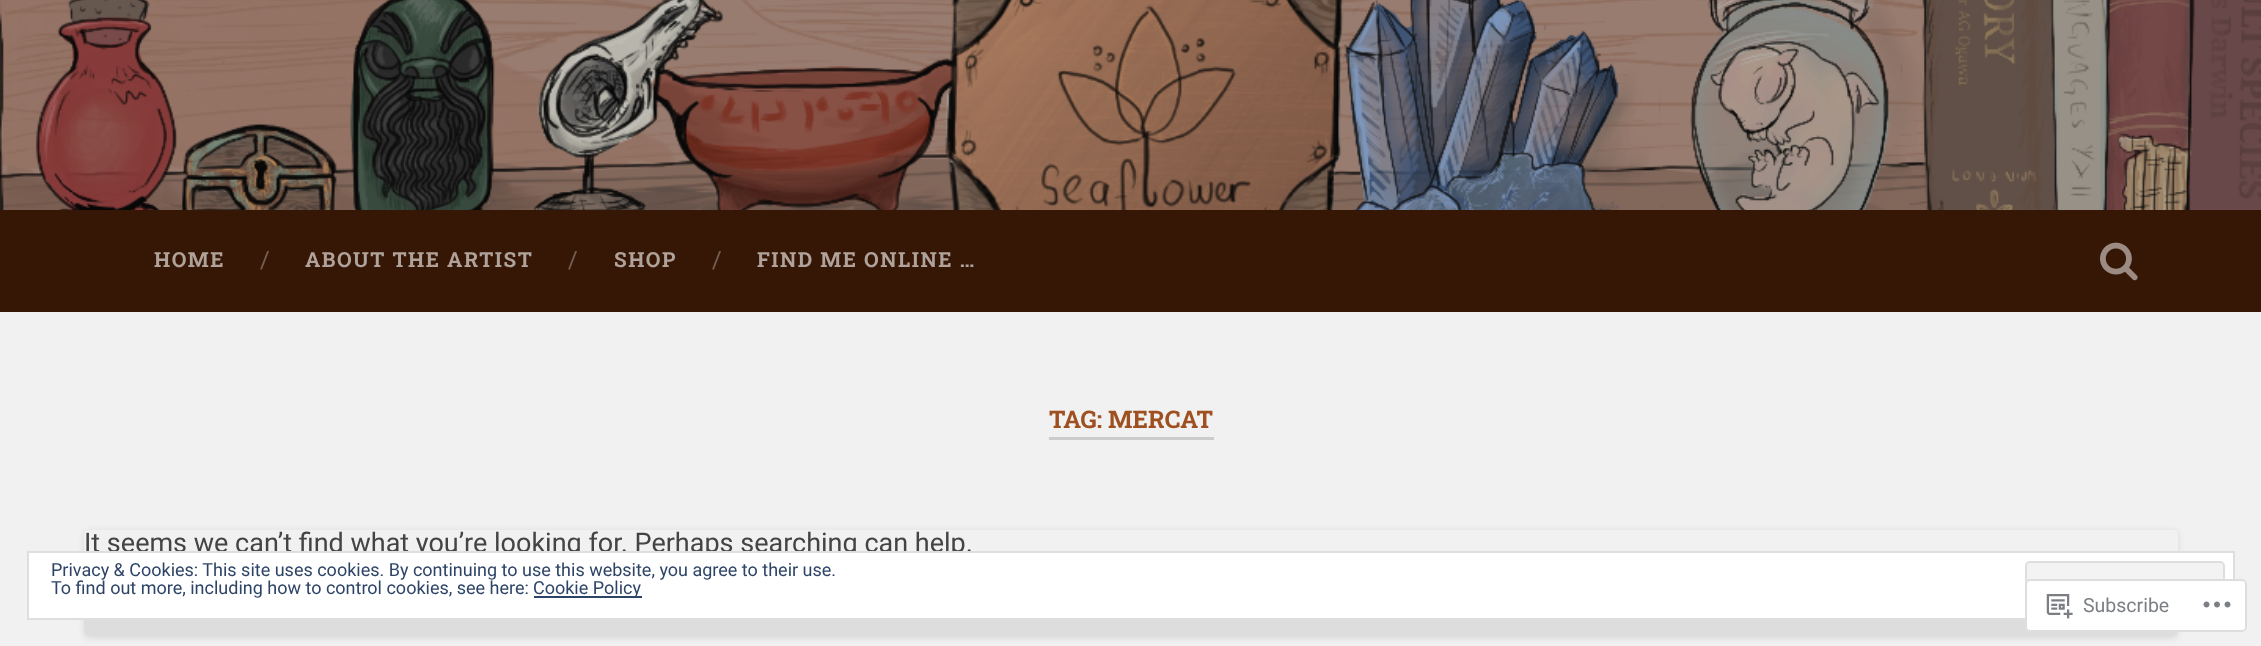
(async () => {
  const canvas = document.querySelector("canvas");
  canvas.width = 2261;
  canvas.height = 646;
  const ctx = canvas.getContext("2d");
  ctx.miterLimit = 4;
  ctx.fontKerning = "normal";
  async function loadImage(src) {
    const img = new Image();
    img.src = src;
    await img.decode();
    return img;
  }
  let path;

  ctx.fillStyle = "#f1f1f1";
  ctx.fillRect(0, 0, 2261, 646);
  ctx.drawImage(await loadImage("img/1.png"), 0, 0, 2261, 210);
  ctx.fillStyle = "#361706";
  ctx.fillRect(0, 210, 2261, 102);
  ctx.drawImage(await loadImage("img/2.png"), 2100, 242, 38, 39);
  ctx.fillStyle = "#cccccc";
  ctx.fillRect(1049, 437, 165, 3);
  ctx.save();
  path = new Path2D("M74 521H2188V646H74ZM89 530H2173C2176 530 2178 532 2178 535V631C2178 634 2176 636 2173 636H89C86 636 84 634 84 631V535C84 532 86 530 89 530Z");
  ctx.clip(path, "evenodd");
  ctx.fillStyle = "rgba(0, 0, 0, 0.1)";
  ctx.filter = "blur(3px)";
  ctx.beginPath();
  ctx.roundRect(84, 531, 2094, 107, 5);
  ctx.fill();
  ctx.filter = "none";
  ctx.restore();
  ctx.letterSpacing = "1.5px";
  ctx.font = "bold 20.75px Roboto Slab";
  ctx.fillStyle = "#afa29b";
  ctx.fillText("HOME", 154, 267);
  ctx.letterSpacing = "0px";
  ctx.font = "24px Roboto Slab";
  ctx.fillStyle = "#725d51";
  ctx.fillText("/", 260, 268);
  ctx.letterSpacing = "1.5px";
  ctx.font = "bold 20.75px Roboto Slab";
  ctx.fillStyle = "#afa29b";
  ctx.fillText("ABOUT THE ARTIST", 305, 267);
  ctx.letterSpacing = "0px";
  ctx.font = "24px Roboto Slab";
  ctx.fillStyle = "#725d51";
  ctx.fillText("/", 568, 268);
  ctx.letterSpacing = "1.5px";
  ctx.font = "bold 20.75px Roboto Slab";
  ctx.fillStyle = "#afa29b";
  ctx.fillText("SHOP", 614, 267);
  ctx.letterSpacing = "0px";
  ctx.font = "24px Roboto Slab";
  ctx.fillStyle = "#725d51";
  ctx.fillText("/", 712, 268);
  ctx.letterSpacing = "1.5px";
  ctx.font = "bold 20.75px Roboto Slab";
  ctx.fillStyle = "#afa29b";
  ctx.fillText("FIND ME ONLINE …", 757, 267);
  ctx.letterSpacing = "0px";
  ctx.font = "bold 24.25px Roboto Slab";
  ctx.fillStyle = "#9f5021";
  ctx.fillText("TAG: MERCAT", 1049, 428);
  ctx.font = "27px Roboto";
  ctx.fillStyle = "#444444";
  ctx.fillText("It seems we can’t find what you’re looking for. Perhaps searching can help.", 84, 552);
  ctx.fillStyle = "#dddddd";
  ctx.beginPath();
  ctx.roundRect(84, 557, 2094, 79, 5);
  ctx.fill();
  ctx.fillStyle = "#ffffff";
  ctx.beginPath();
  ctx.rect(28, 552, 2206, 67);
  ctx.fill();
  ctx.strokeStyle = "#dedede";
  ctx.lineWidth = 2;
  ctx.stroke();
  ctx.font = "18px Roboto";
  ctx.fillStyle = "#2e4467";
  ctx.fillText("Privacy & Cookies: This site uses cookies. By continuing to use this website, you agree to their use.", 51, 576);
  ctx.fillStyle = "#f3f3f3";
  ctx.beginPath();
  ctx.roundRect(2026, 562, 198, 46, 4);
  ctx.fill();
  ctx.stroke();
  ctx.fillStyle = "#2e4467";
  ctx.fillText("To find out more, including how to control cookies, see here:", 51, 594);
  ctx.fillRect(534, 596, 108, 2);
  ctx.fillText("Cookie Policy", 533, 594);
  ctx.fillStyle = "rgba(255, 255, 255, 0.98)";
  ctx.beginPath();
  ctx.roundRect(2025, 579, 222, 53, 5);
  ctx.fill();
  ctx.beginPath();
  ctx.roundRect(2026, 580, 220, 51, 4);
  ctx.strokeStyle = "rgba(220, 220, 222, 0.98)";
  ctx.stroke();
  ctx.drawImage(await loadImage("img/3.png"), 2046, 594, 27, 25);
  ctx.font = "19.5px Roboto";
  ctx.fillStyle = "#7b7f84";
  ctx.fillText("Subscribe", 2083, 612);
  ctx.drawImage(await loadImage("img/4.png"), 2203, 601, 28, 7);
})();
